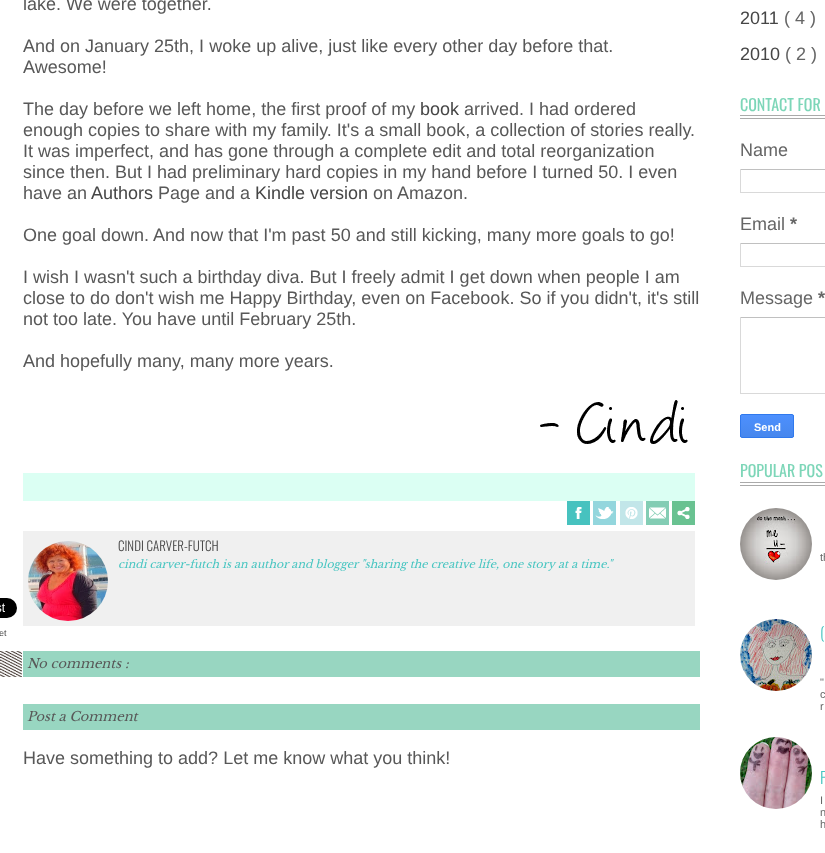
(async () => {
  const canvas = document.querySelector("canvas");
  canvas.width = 825;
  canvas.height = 853;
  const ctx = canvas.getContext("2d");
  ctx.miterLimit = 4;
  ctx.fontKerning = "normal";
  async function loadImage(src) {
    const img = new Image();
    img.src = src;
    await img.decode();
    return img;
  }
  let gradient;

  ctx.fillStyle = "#ffffff";
  ctx.fillRect(0, 0, 825, 853);
  ctx.drawImage(await loadImage("img/1.png"), 540, 400, 148, 44);
  ctx.drawImage(await loadImage("img/2.png"), 0, 598, 17, 20);
  ctx.fillStyle = "#dbfff3";
  ctx.fillRect(23, 473, 672, 28);
  ctx.drawImage(await loadImage("img/3.png"), 567, 501, 23, 24);
  ctx.drawImage(await loadImage("img/4.png"), 593, 501, 23, 24);
  ctx.drawImage(await loadImage("img/5.png"), 620, 501, 23, 24);
  ctx.drawImage(await loadImage("img/6.png"), 646, 501, 23, 24);
  ctx.drawImage(await loadImage("img/7.png"), 672, 501, 23, 24);
  ctx.fillStyle = "#f0f0f0";
  ctx.fillRect(23, 531, 672, 95);
  ctx.drawImage(await loadImage("img/8.png"), 28, 541, 80, 80);
  ctx.drawImage(await loadImage("img/9.png"), 0, 651, 22, 26);
  for (const [x, y, w, h, color] of [
    [23, 651, 677, 26, "#98d6c1"],
    [23, 704, 677, 26, "#98d6c1"],
    [740, 115, 85, 1, "#aaaaaa"],
    [740, 118, 85, 1, "#aaaaaa"],
    [740, 169, 85, 1, "#c0c0c0"],
    [740, 192, 85, 1, "#d9d9d9"],
    [740, 169, 1, 24, "#d9d9d9"],
    [740, 243, 85, 1, "#c0c0c0"],
    [740, 266, 85, 1, "#d9d9d9"],
    [740, 243, 1, 24, "#d9d9d9"],
    [740, 317, 85, 1, "#c0c0c0"],
    [740, 393, 85, 1, "#d9d9d9"],
    [740, 317, 1, 77, "#d9d9d9"],
  ]) {
    ctx.fillStyle = color;
    ctx.fillRect(x, y, w, h);
  }
  ctx.save();
  ctx.beginPath();
  ctx.roundRect(740, 414, 54, 24, 2);
  ctx.clip();
  gradient = ctx.createLinearGradient(767, 415, 767, 437);
  gradient.addColorStop(0, "#4d90fe");
  gradient.addColorStop(1, "#4787ed");
  ctx.fillStyle = gradient;
  ctx.fillRect(740, 415, 54, 22);
  ctx.restore();
  ctx.beginPath();
  ctx.roundRect(740.5, 414.5, 53, 23, 1.5);
  ctx.strokeStyle = "#3079ed";
  ctx.stroke();
  ctx.fillStyle = "#aaaaaa";
  ctx.fillRect(740, 482, 85, 1);
  ctx.fillRect(740, 485, 85, 1);
  ctx.drawImage(await loadImage("img/10.png"), 740, 508, 72, 72);
  ctx.drawImage(await loadImage("img/11.png"), 740, 619, 72, 72);
  ctx.drawImage(await loadImage("img/12.png"), 740, 737, 72, 72);
  ctx.font = "18px Liberation Sans";
  ctx.fillStyle = "#585858";
  for (const [text, x, y] of [
    ["lake. We were together.", 23, 10],
    ["And on January 25th, I woke up alive, just like every other day before that.", 23, 52],
    ["Awesome!", 23, 73],
    ["The day before we left home, the first proof of my", 23, 115],
  ]) {
    ctx.fillText(text, x, y);
  }
  ctx.fillStyle = "#464646";
  ctx.fillText("book", 420, 115);
  ctx.fillStyle = "#585858";
  for (const [text, x, y] of [
    ["arrived. I had ordered", 464, 115],
    ["enough copies to share with my family. It's a small book, a collection of stories really.", 23, 136],
    ["It was imperfect, and has gone through a complete edit and total reorganization", 23, 157],
    ["since then. But I had preliminary hard copies in my hand before I turned 50. I even", 23, 178],
    ["have an", 23, 199],
  ]) {
    ctx.fillText(text, x, y);
  }
  ctx.fillStyle = "#464646";
  ctx.fillText("Authors", 91, 199);
  ctx.fillStyle = "#585858";
  ctx.fillText("Page and a", 158, 199);
  ctx.fillStyle = "#464646";
  ctx.fillText("Kindle version", 255, 199);
  ctx.fillStyle = "#585858";
  for (const [text, x, y] of [
    ["on Amazon.", 373, 199],
    ["One goal down. And now that I'm past 50 and still kicking, many more goals to go!", 23, 241],
    ["I wish I wasn't such a birthday diva. But I freely admit I get down when people I am", 23, 283],
    ["close to do don't wish me Happy Birthday, even on Facebook. So if you didn't, it's still", 23, 304],
    ["not too late. You have until February 25th.", 23, 325],
    ["And hopefully many, many more years.", 23, 367],
  ]) {
    ctx.fillText(text, x, y);
  }
  ctx.font = "9px Liberation Sans";
  ctx.fillStyle = "#464646";
  ctx.fillText("et", -1, 636);
  ctx.font = "300 13px Oswald";
  ctx.fillText("CINDI CARVER-FUTCH", 118, 551);
  ctx.font = "italic 11px Libre Baskerville";
  ctx.fillStyle = "#47c5c1";
  ctx.fillText("cindi carver-futch is an author and blogger \"sharing the creative life, one story at a time.\"", 118, 568);
  ctx.font = "italic 13px Libre Baskerville";
  ctx.fillStyle = "#585858";
  ctx.fillText("No comments :", 27, 668);
  ctx.fillText("Post a Comment", 27, 721);
  ctx.font = "18px Liberation Sans";
  ctx.fillText("Have something to add? Let me know what you think!", 23, 764);
  ctx.fillStyle = "#464646";
  ctx.fillText("2011", 740, 24);
  ctx.fillStyle = "#666666";
  ctx.fillText("( 4 )", 784, 24);
  ctx.fillStyle = "#464646";
  ctx.fillText("2010", 740, 60);
  ctx.fillStyle = "#666666";
  ctx.fillText("( 2 )", 785, 60);
  ctx.font = "16px Oswald";
  ctx.fillStyle = "#7dd6b8";
  ctx.fillText("CONTACT FOR", 740, 111);
  ctx.font = "18px Liberation Sans";
  ctx.fillStyle = "#666666";
  ctx.fillText("Name", 740, 156);
  ctx.fillText("Email", 740, 230);
  ctx.font = "bold 18px Liberation Sans";
  ctx.fillText("*", 790, 230);
  ctx.font = "18px Liberation Sans";
  ctx.fillText("Message", 740, 304);
  ctx.font = "bold 18px Liberation Sans";
  ctx.fillText("*", 818, 304);
  ctx.font = "bold 11px Liberation Sans";
  ctx.fillStyle = "#ffffff";
  ctx.fillText("Send", 754, 431);
  ctx.font = "16px Oswald";
  ctx.fillStyle = "#7dd6b8";
  ctx.fillText("POPULAR POS", 740, 477);
  ctx.font = "11px Liberation Sans";
  ctx.fillStyle = "#666666";
  ctx.fillText("th", 820, 561);
  ctx.font = "300 16px Oswald";
  ctx.fillStyle = "#47c5c1";
  ctx.fillText("(", 820, 639);
  ctx.font = "11px Liberation Sans";
  ctx.fillStyle = "#666666";
  for (const [text, x, y] of [
    ["\"", 820, 686],
    ["c", 820, 698],
    ["r", 820, 710],
  ]) {
    ctx.fillText(text, x, y);
  }
  ctx.font = "300 16px Oswald";
  ctx.fillStyle = "#47c5c1";
  ctx.fillText("F", 820, 784);
  ctx.font = "11px Liberation Sans";
  ctx.fillStyle = "#666666";
  for (const [text, x, y] of [
    ["I", 820, 804],
    ["n", 820, 816],
    ["h", 820, 828],
  ]) {
    ctx.fillText(text, x, y);
  }
})();
